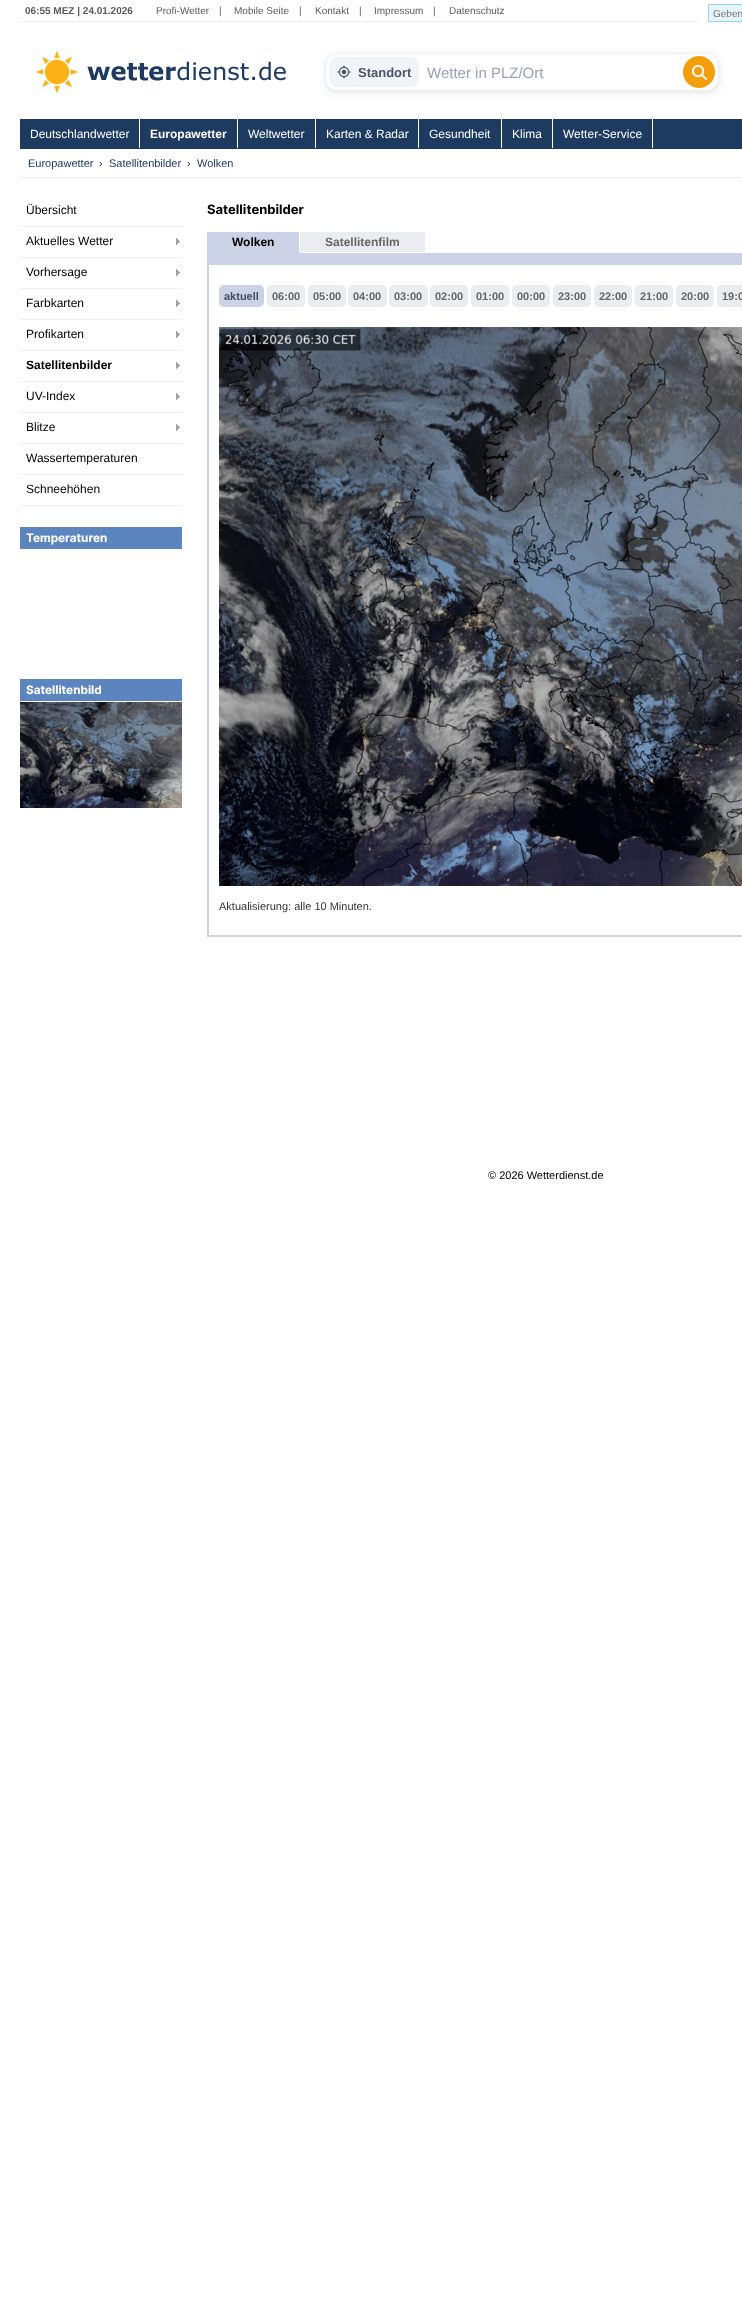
(async () => {
  const canvas = document.querySelector("canvas");
  canvas.width = 742;
  canvas.height = 2319;
  const ctx = canvas.getContext("2d");
  ctx.miterLimit = 4;
  ctx.fontKerning = "normal";
  async function loadImage(src) {
    const img = new Image();
    img.src = src;
    await img.decode();
    return img;
  }

  ctx.fillStyle = "#ffffff";
  ctx.fillRect(0, 0, 742, 2319);
  ctx.fillStyle = "#eeeeee";
  ctx.fillRect(20, 21, 678, 1);
  ctx.fillStyle = "#e8f5fb";
  ctx.beginPath();
  ctx.rect(708.5, 4.5, 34, 17);
  ctx.fill();
  ctx.strokeStyle = "#90d5f3";
  ctx.stroke();
  ctx.drawImage(await loadImage("img/1.png"), 35, 50, 251, 44);
  ctx.fillStyle = "rgba(0, 0, 0, 0.04)";
  ctx.filter = "blur(1px)";
  ctx.beginPath();
  ctx.roundRect(325, 54, 394, 38, 12);
  ctx.fill();
  ctx.filter = "none";
  ctx.fillStyle = "rgba(0, 0, 0, 0.08)";
  ctx.filter = "blur(4px)";
  ctx.beginPath();
  ctx.roundRect(325, 55, 394, 38, 12);
  ctx.fill();
  ctx.filter = "none";
  ctx.fillStyle = "#ffffff";
  ctx.beginPath();
  ctx.roundRect(325.5, 53.5, 393, 37, 11.5);
  ctx.fill();
  ctx.strokeStyle = "#eef2f6";
  ctx.stroke();
  ctx.fillStyle = "#f1f5f9";
  ctx.beginPath();
  ctx.roundRect(329, 57, 90, 30, 8);
  ctx.fill();
  ctx.drawImage(await loadImage("img/2.png"), 337, 65, 14, 14);
  ctx.fillStyle = "#f59e0b";
  ctx.beginPath();
  ctx.arc(699, 72, 16, 0, Math.PI * 2);
  ctx.fill();
  ctx.drawImage(await loadImage("img/3.png"), 692, 65, 15, 15);
  for (const [x, y, w, h, color] of [
    [20, 119, 722, 30, "#1d3a61"],
    [139, 119, 1, 29, "#ffffff"],
    [237, 119, 1, 29, "#ffffff"],
    [315, 119, 1, 29, "#ffffff"],
    [418, 119, 1, 29, "#ffffff"],
    [501, 119, 1, 29, "#ffffff"],
    [552, 119, 1, 29, "#ffffff"],
    [652, 119, 1, 29, "#ffffff"],
    [20, 177, 722, 1, "#eeeeee"],
    [20, 226, 162, 1, "#eeeeee"],
  ]) {
    ctx.fillStyle = color;
    ctx.fillRect(x, y, w, h);
  }
  ctx.drawImage(await loadImage("img/4.png"), 176, 238, 4, 7);
  ctx.fillRect(20, 257, 162, 1);
  ctx.drawImage(await loadImage("img/4.png"), 176, 269, 4, 7);
  ctx.fillRect(20, 288, 162, 1);
  ctx.drawImage(await loadImage("img/4.png"), 176, 300, 4, 7);
  ctx.fillRect(20, 319, 162, 1);
  ctx.drawImage(await loadImage("img/4.png"), 176, 331, 4, 7);
  ctx.fillRect(20, 350, 162, 1);
  ctx.drawImage(await loadImage("img/4.png"), 176, 362, 4, 7);
  ctx.fillRect(20, 381, 162, 1);
  ctx.drawImage(await loadImage("img/4.png"), 176, 393, 4, 7);
  ctx.fillRect(20, 412, 162, 1);
  ctx.drawImage(await loadImage("img/4.png"), 176, 424, 4, 7);
  for (const [x, y, w, h, color] of [
    [20, 443, 162, 1, "#eeeeee"],
    [20, 474, 162, 1, "#eeeeee"],
    [20, 505, 162, 1, "#eeeeee"],
    [20, 527, 162, 22, "#5c84bf"],
    [20, 679, 162, 22, "#5c84bf"],
  ]) {
    ctx.fillStyle = color;
    ctx.fillRect(x, y, w, h);
  }
  ctx.drawImage(await loadImage("img/5.png"), 20, 702, 162, 106);
  for (const [x, y, w, h, color] of [
    [207, 232, 92, 20, "#cbd2e6"],
    [207, 252, 93, 1, "#cbd2e6"],
    [300, 232, 125, 20, "#ebecf0"],
    [207, 253, 535, 684, "#cbd2e6"],
    [209, 265, 533, 670, "#ffffff"],
  ]) {
    ctx.fillStyle = color;
    ctx.fillRect(x, y, w, h);
  }
  ctx.fillStyle = "#cbd2e6";
  ctx.beginPath();
  ctx.roundRect(219, 285, 45, 22, 5);
  ctx.fill();
  ctx.fillStyle = "#ebecf0";
  ctx.beginPath();
  ctx.roundRect(267, 285, 38, 22, 5);
  ctx.fill();
  ctx.beginPath();
  ctx.roundRect(308, 285, 38, 22, 5);
  ctx.fill();
  ctx.beginPath();
  ctx.roundRect(348, 285, 39, 22, 5);
  ctx.fill();
  ctx.beginPath();
  ctx.roundRect(389, 285, 39, 22, 5);
  ctx.fill();
  ctx.beginPath();
  ctx.roundRect(430, 285, 38, 22, 5);
  ctx.fill();
  ctx.beginPath();
  ctx.roundRect(471, 285, 38, 22, 5);
  ctx.fill();
  ctx.beginPath();
  ctx.roundRect(512, 285, 38, 22, 5);
  ctx.fill();
  ctx.beginPath();
  ctx.roundRect(553, 285, 38, 22, 5);
  ctx.fill();
  ctx.beginPath();
  ctx.roundRect(594, 285, 38, 22, 5);
  ctx.fill();
  ctx.beginPath();
  ctx.roundRect(635, 285, 38, 22, 5);
  ctx.fill();
  ctx.beginPath();
  ctx.roundRect(676, 285, 38, 22, 5);
  ctx.fill();
  ctx.beginPath();
  ctx.roundRect(717, 285, 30, 22, 5);
  ctx.fill();
  ctx.drawImage(await loadImage("img/6.png"), 219, 327, 523, 559);
  ctx.font = "bold 10px Liberation Sans";
  ctx.fillStyle = "#5a5a5a";
  ctx.fillText("06:55 MEZ | 24.01.2026", 25, 14);
  ctx.font = "10px Liberation Sans";
  for (const [text, x, y] of [
    ["Profi-Wetter", 156, 14],
    ["|", 219, 14],
    ["Mobile Seite", 234, 14],
    ["|", 299, 14],
    ["Kontakt", 315, 14],
    ["|", 359, 14],
    ["Impressum", 374, 14],
    ["|", 433, 14],
    ["Datenschutz", 449, 14],
  ]) {
    ctx.fillText(text, x, y);
  }
  ctx.fillStyle = "#757575";
  ctx.fillText("Geben", 713, 17);
  ctx.font = "bold 13px Liberation Sans";
  ctx.fillStyle = "#475569";
  ctx.fillText("Standort", 358, 77);
  ctx.font = "15px Liberation Sans";
  ctx.fillStyle = "#94a3b8";
  ctx.fillText("Wetter in PLZ/Ort", 427, 78);
  ctx.font = "12px Liberation Sans";
  ctx.fillStyle = "#ffffff";
  ctx.fillText("Deutschlandwetter", 30, 138);
  ctx.font = "bold 12px Liberation Sans";
  ctx.fillText("Europawetter", 150, 138);
  ctx.font = "12px Liberation Sans";
  for (const [text, x, y] of [
    ["Weltwetter", 248, 138],
    ["Karten & Radar", 326, 138],
    ["Gesundheit", 429, 138],
    ["Klima", 512, 138],
    ["Wetter-Service", 563, 138],
  ]) {
    ctx.fillText(text, x, y);
  }
  ctx.font = "11px Liberation Sans";
  ctx.fillStyle = "#1d3a61";
  for (const [text, x, y] of [
    ["Europawetter", 28, 167],
    ["›", 99, 167],
    ["Satellitenbilder", 109, 167],
    ["›", 187, 167],
    ["Wolken", 197, 167],
  ]) {
    ctx.fillText(text, x, y);
  }
  ctx.font = "12px Liberation Sans";
  ctx.fillStyle = "#000000";
  for (const [text, x, y] of [
    ["Übersicht", 26, 214],
    ["Aktuelles Wetter", 26, 245],
    ["Vorhersage", 26, 276],
    ["Farbkarten", 26, 307],
    ["Profikarten", 26, 338],
  ]) {
    ctx.fillText(text, x, y);
  }
  ctx.font = "bold 12px Liberation Sans";
  ctx.fillText("Satellitenbilder", 26, 369);
  ctx.font = "12px Liberation Sans";
  for (const [text, x, y] of [
    ["UV-Index", 26, 400],
    ["Blitze", 26, 431],
    ["Wassertemperaturen", 26, 462],
    ["Schneehöhen", 26, 493],
  ]) {
    ctx.fillText(text, x, y);
  }
  ctx.font = "bold 11.75px Inter";
  ctx.fillStyle = "#ffffff";
  ctx.fillText("Temperaturen", 26, 542);
  ctx.fillText("Satellitenbild", 26, 694);
  ctx.font = "bold 13px Inter";
  ctx.fillStyle = "#000000";
  ctx.fillText("Satellitenbilder", 207, 214);
  ctx.font = "bold 12px Liberation Sans";
  ctx.fillText("Wolken", 232, 246);
  ctx.fillStyle = "#666666";
  ctx.fillText("Satellitenfilm", 325, 246);
  ctx.font = "bold 11px Liberation Sans";
  ctx.fillStyle = "#3f4e63";
  ctx.fillText("aktuell", 224, 300);
  ctx.fillStyle = "#666666";
  for (const [text, x, y] of [
    ["06:00", 272, 300],
    ["05:00", 313, 300],
    ["04:00", 353, 300],
    ["03:00", 394, 300],
    ["02:00", 435, 300],
    ["01:00", 476, 300],
    ["00:00", 517, 300],
    ["23:00", 558, 300],
    ["22:00", 599, 300],
    ["21:00", 640, 300],
    ["20:00", 681, 300],
    ["19:0", 722, 300],
  ]) {
    ctx.fillText(text, x, y);
  }
  ctx.font = "11px Liberation Sans";
  ctx.fillStyle = "#333333";
  ctx.fillText("Aktualisierung: alle 10 Minuten.", 219, 910);
  ctx.fillStyle = "#000000";
  ctx.fillText("© 2026 Wetterdienst.de", 488, 1179);
})();
